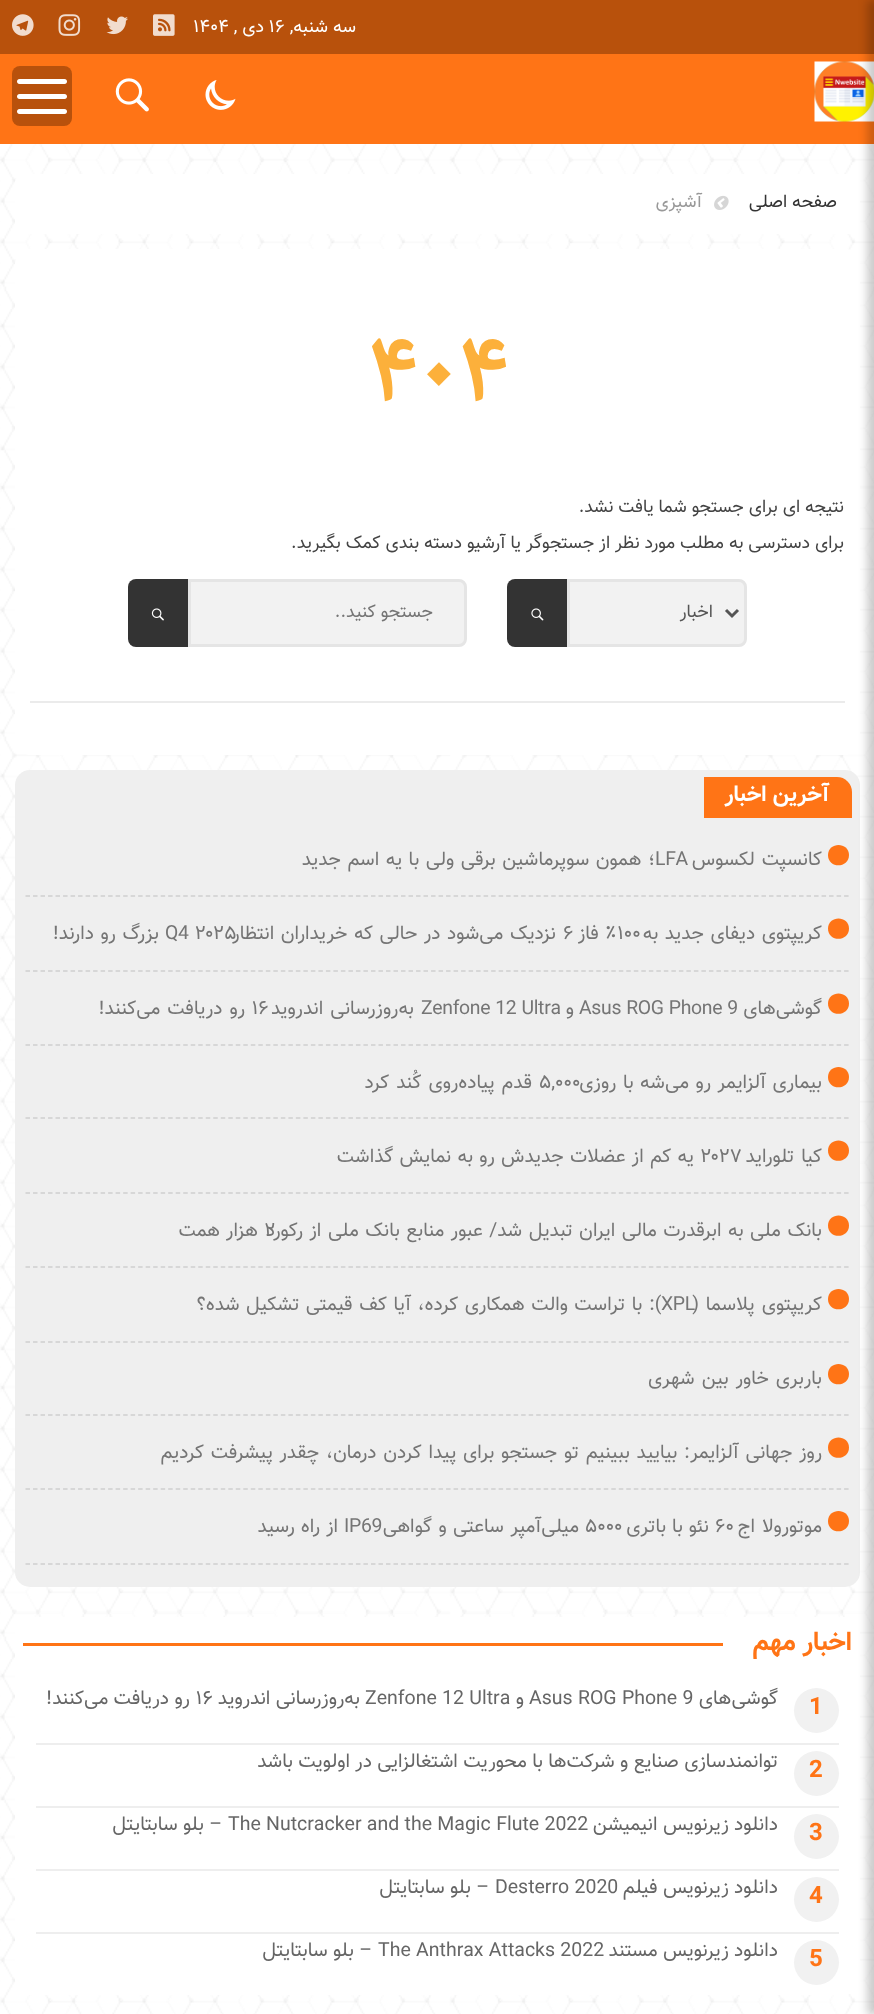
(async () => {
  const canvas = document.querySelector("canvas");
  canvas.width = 874;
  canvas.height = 2014;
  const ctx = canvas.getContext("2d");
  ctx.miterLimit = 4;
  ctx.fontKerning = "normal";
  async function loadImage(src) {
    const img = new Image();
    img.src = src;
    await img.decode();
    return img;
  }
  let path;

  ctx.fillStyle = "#ffffff";
  ctx.fillRect(0, 0, 874, 2014);
  ctx.drawImage(await loadImage("img/1.png"), 0, 144, 874, 1870);
  ctx.fillStyle = "#ff7416";
  ctx.fillRect(0, 54, 874, 90);
  ctx.drawImage(await loadImage("img/5.png"), 814, 61, 60, 61);
  ctx.fillStyle = "#b8510c";
  ctx.fillRect(0, 0, 874, 54);
  ctx.fillStyle = "#ffffff";
  ctx.beginPath();
  ctx.roundRect(15, 174, 845, 60, 8);
  ctx.fill();
  ctx.beginPath();
  ctx.roundRect(15, 249, 845, 506, 15);
  ctx.fill();
  ctx.fillStyle = "#efefef";
  ctx.beginPath();
  ctx.roundRect(15, 770, 845, 817, 15);
  ctx.fill();
  ctx.fillStyle = "#ffffff";
  ctx.beginPath();
  ctx.roundRect(15, 1617, 845, 378, 15);
  ctx.fill();
  ctx.fillStyle = "rgba(0, 0, 0, 0.2)";
  ctx.filter = "blur(4px)";
  ctx.beginPath();
  ctx.rect(867, 0, 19, 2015);
  ctx.fill();
  ctx.filter = "none";
  ctx.drawImage(await loadImage("img/2.png"), 205, 80, 31, 30);
  ctx.drawImage(await loadImage("img/3.png"), 115, 78, 34, 34);
  ctx.fillStyle = "#b8510c";
  ctx.beginPath();
  ctx.roundRect(12, 66, 60, 60, 8);
  ctx.fill();
  ctx.drawImage(await loadImage("img/4.png"), 17, 79, 50, 35);
  ctx.drawImage(await loadImage("img/6.png"), 153, 14, 22, 22);
  ctx.drawImage(await loadImage("img/7.png"), 106, 16, 22, 19);
  ctx.drawImage(await loadImage("img/8.png"), 58, 14, 23, 22);
  ctx.drawImage(await loadImage("img/9.png"), 12, 14, 22, 22);
  ctx.drawImage(await loadImage("img/10.png"), 714, 195, 15, 15);
  ctx.fillStyle = "#ebebeb";
  ctx.fillRect(30, 701, 815, 2);
  ctx.fillStyle = "#f2f2f2";
  ctx.beginPath();
  ctx.roundRect(568.5, 580.5, 177, 65, [0, 6.5, 6.5, 0]);
  ctx.fill();
  ctx.strokeStyle = "#e5e5e5";
  ctx.lineWidth = 3;
  ctx.stroke();
  path = new Path2D("M726 610L732 616L738 610");
  ctx.strokeStyle = "#555555";
  ctx.stroke(path);
  ctx.fillStyle = "#333333";
  ctx.beginPath();
  ctx.roundRect(507, 579, 60, 68, [8, 0, 0, 8]);
  ctx.fill();
  ctx.drawImage(await loadImage("img/11.png"), 531, 608, 13, 13);
  ctx.fillStyle = "#f2f2f2";
  ctx.beginPath();
  ctx.roundRect(189.5, 580.5, 276, 65, [0, 6.5, 6.5, 0]);
  ctx.fill();
  ctx.strokeStyle = "#e5e5e5";
  ctx.stroke();
  ctx.fillStyle = "#333333";
  ctx.beginPath();
  ctx.roundRect(128, 579, 60, 68, [8, 0, 0, 8]);
  ctx.fill();
  ctx.drawImage(await loadImage("img/12.png"), 151, 608, 13, 13);
  ctx.fillStyle = "#ff7416";
  ctx.beginPath();
  ctx.roundRect(704, 777, 148, 41, [0, 15, 0, 0]);
  ctx.fill();
  path = new Path2D("M25.5 896H849");
  ctx.strokeStyle = "#cfcfd0";
  ctx.lineWidth = 1.5;
  ctx.setLineDash([4.5, 3.01]);
  ctx.stroke(path);
  path = new Path2D("M849 855C849 868.5 828 869 828 855C828 841.5 849 841.5 849 855Z");
  ctx.fill(path);
  path = new Path2D("M25.5 971H849");
  ctx.stroke(path);
  path = new Path2D("M849 928.5C849 942 828 942.5 828 928.5C828 915 849 915 849 928.5Z");
  ctx.fill(path);
  path = new Path2D("M25.5 1045H849");
  ctx.stroke(path);
  path = new Path2D("M849 1003.5C849 1017 828 1017.5 828 1003.5C828 990 849 990 849 1003.5Z");
  ctx.fill(path);
  path = new Path2D("M25.5 1118H849");
  ctx.stroke(path);
  path = new Path2D("M849 1077C849 1090.5 828 1091 828 1077C828 1063.5 849 1063.5 849 1077Z");
  ctx.fill(path);
  path = new Path2D("M25.5 1193H849");
  ctx.stroke(path);
  path = new Path2D("M849 1150.5C849 1164 828 1164.5 828 1150.5C828 1137 849 1137 849 1150.5Z");
  ctx.fill(path);
  path = new Path2D("M25.5 1267H849");
  ctx.stroke(path);
  path = new Path2D("M849 1225.5C849 1239 828 1239.5 828 1225.5C828 1212 849 1212 849 1225.5Z");
  ctx.fill(path);
  path = new Path2D("M25.5 1342H849");
  ctx.stroke(path);
  path = new Path2D("M849 1299C849 1312.5 828 1313 828 1299C828 1285.5 849 1285.5 849 1299Z");
  ctx.fill(path);
  path = new Path2D("M25.5 1415H849");
  ctx.stroke(path);
  path = new Path2D("M849 1374C849 1387.5 828 1388 828 1374C828 1360.5 849 1360.5 849 1374Z");
  ctx.fill(path);
  path = new Path2D("M25.5 1489H849");
  ctx.stroke(path);
  path = new Path2D("M849 1447.5C849 1461 828 1461.5 828 1447.5C828 1434 849 1434 849 1447.5Z");
  ctx.fill(path);
  path = new Path2D("M25.5 1564H849");
  ctx.stroke(path);
  path = new Path2D("M849 1521C849 1534.5 828 1535 828 1521C828 1507.5 849 1507.5 849 1521Z");
  ctx.fill(path);
  ctx.fillRect(23, 1643, 700, 3);
  ctx.fillStyle = "#eeeeee";
  ctx.fillRect(36, 1743, 803, 2);
  ctx.fillStyle = "#f1f1f1";
  ctx.beginPath();
  ctx.arc(816.5, 1710.5, 22.5, 0, Math.PI * 2);
  ctx.fill();
  ctx.fillStyle = "#eeeeee";
  ctx.fillRect(36, 1806, 803, 2);
  ctx.fillStyle = "#f1f1f1";
  ctx.beginPath();
  ctx.arc(816.5, 1773.5, 22.5, 0, Math.PI * 2);
  ctx.fill();
  ctx.fillStyle = "#eeeeee";
  ctx.fillRect(36, 1869, 803, 2);
  ctx.fillStyle = "#f1f1f1";
  ctx.beginPath();
  ctx.arc(816.5, 1836.5, 22.5, 0, Math.PI * 2);
  ctx.fill();
  ctx.fillStyle = "#eeeeee";
  ctx.fillRect(36, 1932, 803, 2);
  ctx.fillStyle = "#f1f1f1";
  ctx.beginPath();
  ctx.arc(816.5, 1899.5, 22.5, 0, Math.PI * 2);
  ctx.fill();
  ctx.beginPath();
  ctx.arc(816.5, 1962.5, 22.5, 0, Math.PI * 2);
  ctx.fill();
  ctx.direction = "rtl";
  ctx.font = "18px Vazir";
  ctx.fillStyle = "#ffffff";
  ctx.fillText("سه شنبه,", 356, 32);
  ctx.direction = "ltr";
  ctx.fillText("۱۶", 269, 32);
  ctx.direction = "rtl";
  ctx.fillText("دی ,", 264, 32);
  ctx.direction = "ltr";
  ctx.fillText("۱۴۰۴", 193, 32);
  ctx.direction = "rtl";
  ctx.fillStyle = "#333333";
  ctx.fillText("صفحه اصلی", 837, 207);
  ctx.fillStyle = "#999999";
  ctx.fillText("آشپزی", 702, 207);
  ctx.direction = "ltr";
  ctx.font = "bold 90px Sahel";
  ctx.fillStyle = "#fcb03b";
  ctx.fillText("404", 367, 402);
  ctx.direction = "rtl";
  ctx.font = "18px Vazir";
  ctx.fillStyle = "#444444";
  ctx.fillText("نتیجه ای برای جستجو شما یافت نشد.", 844, 512);
  ctx.fillText("برای دسترسی به مطلب مورد نظر از جستجوگر یا آرشیو دسته بندی کمک بگیرید.", 844, 548);
  ctx.fillStyle = "#555555";
  ctx.fillText("اخبار", 713, 617);
  ctx.fillStyle = "#757575";
  ctx.fillText("جستجو کنید..", 433, 617);
  ctx.font = "bold 22.5px Vazir";
  ctx.fillStyle = "#ffffff";
  ctx.fillText("آخرین اخبار", 829, 801);
  ctx.letterSpacing = "-0.3px";
  ctx.wordSpacing = "2px";
  ctx.font = "19.4px Vazir";
  ctx.fillStyle = "#757575";
  ctx.fillText("کانسپت لکسوس", 822, 865);
  ctx.wordSpacing = "0px";
  ctx.direction = "ltr";
  ctx.fillText("LFA", 655, 865);
  ctx.wordSpacing = "1.5px";
  ctx.direction = "rtl";
  ctx.fillText("؛ همون سوپرماشین برقی ولی با یه اسم جدید", 655, 865);
  ctx.fillText("کریپتوی دیفای جدید به", 822, 939);
  ctx.wordSpacing = "0px";
  ctx.direction = "ltr";
  ctx.fillText("۱۰۰", 617, 939);
  ctx.wordSpacing = "1px";
  ctx.direction = "rtl";
  ctx.fillText("٪ فاز", 617, 939);
  ctx.wordSpacing = "0px";
  ctx.direction = "ltr";
  ctx.fillText("۶", 563, 939);
  ctx.wordSpacing = "1.5px";
  ctx.direction = "rtl";
  ctx.fillText("نزدیک می‌شود در حالی که خریداران انتظار", 556, 939);
  ctx.wordSpacing = "1px";
  ctx.direction = "ltr";
  ctx.fillText("Q4 ۲۰۲۵", 165, 939);
  ctx.wordSpacing = "1.5px";
  ctx.direction = "rtl";
  ctx.fillText("بزرگ رو دارند!", 159, 939);
  ctx.wordSpacing = "0px";
  ctx.fillText("گوشی‌های", 822, 1014);
  ctx.direction = "ltr";
  ctx.fillText("Asus ROG Phone 9", 579, 1014);
  ctx.direction = "rtl";
  ctx.fillText("و", 574, 1014);
  ctx.direction = "ltr";
  ctx.fillText("Zenfone 12 Ultra", 421, 1014);
  ctx.wordSpacing = "2px";
  ctx.direction = "rtl";
  ctx.fillText("به‌روزرسانی اندروید", 414, 1014);
  ctx.wordSpacing = "0px";
  ctx.direction = "ltr";
  ctx.fillText("۱۶", 252, 1014);
  ctx.wordSpacing = "2px";
  ctx.direction = "rtl";
  ctx.fillText("رو دریافت می‌کنند!", 245, 1014);
  ctx.wordSpacing = "1.5px";
  ctx.fillText("بیماری آلزایمر رو می‌شه با روزی", 822, 1088);
  ctx.wordSpacing = "0px";
  ctx.direction = "ltr";
  ctx.fillText("۵,۰۰۰", 539, 1088);
  ctx.wordSpacing = "2px";
  ctx.direction = "rtl";
  ctx.fillText("قدم پیاده‌روی کُند کرد", 532, 1088);
  ctx.fillText("کیا تلوراید", 822, 1162);
  ctx.wordSpacing = "0px";
  ctx.direction = "ltr";
  ctx.fillText("۲۰۲۷", 700, 1162);
  ctx.wordSpacing = "1.25px";
  ctx.direction = "rtl";
  ctx.fillText("یه کم از عضلات جدیدش رو به نمایش گذاشت", 694, 1162);
  ctx.wordSpacing = "1.5px";
  ctx.fillText("بانک ملی به ابرقدرت مالی ایران تبدیل شد/ عبور منابع بانک ملی از رکورد", 822, 1236);
  ctx.wordSpacing = "0px";
  ctx.direction = "ltr";
  ctx.fillText("۲", 264, 1236);
  ctx.wordSpacing = "1px";
  ctx.direction = "rtl";
  ctx.fillText("هزار همت", 258, 1236);
  ctx.wordSpacing = "0px";
  ctx.direction = "ltr";
  ctx.fillText("XPL", 661, 1310);
  ctx.wordSpacing = "2px";
  ctx.direction = "rtl";
  ctx.fillText("کریپتوی پلاسما (", 822, 1310);
  ctx.wordSpacing = "1.5px";
  ctx.fillText("): با تراست والت همکاری کرده، آیا کف قیمتی تشکیل شده؟", 661, 1310);
  ctx.wordSpacing = "2px";
  ctx.fillText("باربری خاور بین شهری", 822, 1384);
  ctx.wordSpacing = "1.75px";
  ctx.fillText("روز جهانی آلزایمر: بیایید ببینیم تو جستجو برای پیدا کردن درمان، چقدر پیشرفت کردیم", 822, 1458);
  ctx.wordSpacing = "2px";
  ctx.fillText("موتورولا اج", 822, 1532);
  ctx.wordSpacing = "0px";
  ctx.direction = "ltr";
  ctx.fillText("۶۰", 715, 1532);
  ctx.wordSpacing = "1px";
  ctx.direction = "rtl";
  ctx.fillText("نئو با باتری", 709, 1532);
  ctx.wordSpacing = "0px";
  ctx.direction = "ltr";
  ctx.fillText("۵۰۰۰", 585, 1532);
  ctx.wordSpacing = "1.5px";
  ctx.direction = "rtl";
  ctx.fillText("میلی‌آمپر ساعتی و گواهی", 579, 1532);
  ctx.wordSpacing = "0px";
  ctx.direction = "ltr";
  ctx.fillText("IP69", 344, 1532);
  ctx.wordSpacing = "1px";
  ctx.direction = "rtl";
  ctx.fillText("از راه رسید", 338, 1532);
  ctx.letterSpacing = "0px";
  ctx.wordSpacing = "0px";
  ctx.font = "bold 26.5px Vazir";
  ctx.fillStyle = "#ff7416";
  ctx.fillText("اخبار مهم", 852, 1650);
  ctx.direction = "ltr";
  ctx.font = "bold 24px Vazir";
  ctx.fillText("1", 809, 1714);
  ctx.direction = "rtl";
  ctx.font = "19.5px Vazir";
  ctx.fillStyle = "#666666";
  ctx.fillText("گوشی‌های", 778, 1704);
  ctx.direction = "ltr";
  ctx.fillText("Asus ROG Phone 9", 529, 1704);
  ctx.direction = "rtl";
  ctx.fillText("و", 524, 1704);
  ctx.direction = "ltr";
  ctx.fillText("Zenfone 12 Ultra", 365, 1704);
  ctx.direction = "rtl";
  ctx.fillText("به‌روزرسانی اندروید", 360, 1704);
  ctx.direction = "ltr";
  ctx.fillText("۱۶", 196, 1704);
  ctx.direction = "rtl";
  ctx.fillText("رو دریافت می‌کنند!", 190, 1704);
  ctx.direction = "ltr";
  ctx.font = "bold 24px Vazir";
  ctx.fillStyle = "#ff7416";
  ctx.fillText("2", 809, 1777);
  ctx.direction = "rtl";
  ctx.font = "19.5px Vazir";
  ctx.fillStyle = "#666666";
  ctx.fillText("توانمندسازی صنایع و شرکت‌ها با محوریت اشتغالزایی در اولویت باشد", 778, 1767);
  ctx.direction = "ltr";
  ctx.font = "bold 24px Vazir";
  ctx.fillStyle = "#ff7416";
  ctx.fillText("3", 809, 1840);
  ctx.direction = "rtl";
  ctx.font = "19.5px Vazir";
  ctx.fillStyle = "#666666";
  ctx.fillText("دانلود زیرنویس انیمیشن", 778, 1830);
  ctx.direction = "ltr";
  ctx.fillText("The Nutcracker and the Magic Flute 2022", 228, 1830);
  ctx.direction = "rtl";
  ctx.fillText("– بلو سابتایتل", 222, 1830);
  ctx.direction = "ltr";
  ctx.font = "bold 24px Vazir";
  ctx.fillStyle = "#ff7416";
  ctx.fillText("4", 809, 1903);
  ctx.direction = "rtl";
  ctx.font = "19.5px Vazir";
  ctx.fillStyle = "#666666";
  ctx.fillText("دانلود زیرنویس فیلم", 778, 1893);
  ctx.direction = "ltr";
  ctx.fillText("Desterro 2020", 495, 1893);
  ctx.direction = "rtl";
  ctx.fillText("– بلو سابتایتل", 489, 1893);
  ctx.direction = "ltr";
  ctx.font = "bold 24px Vazir";
  ctx.fillStyle = "#ff7416";
  ctx.fillText("5", 809, 1966);
  ctx.direction = "rtl";
  ctx.font = "19.5px Vazir";
  ctx.fillStyle = "#666666";
  ctx.fillText("دانلود زیرنویس مستند", 778, 1956);
  ctx.direction = "ltr";
  ctx.fillText("The Anthrax Attacks 2022", 378, 1956);
  ctx.direction = "rtl";
  ctx.fillText("– بلو سابتایتل", 372, 1956);
})();
